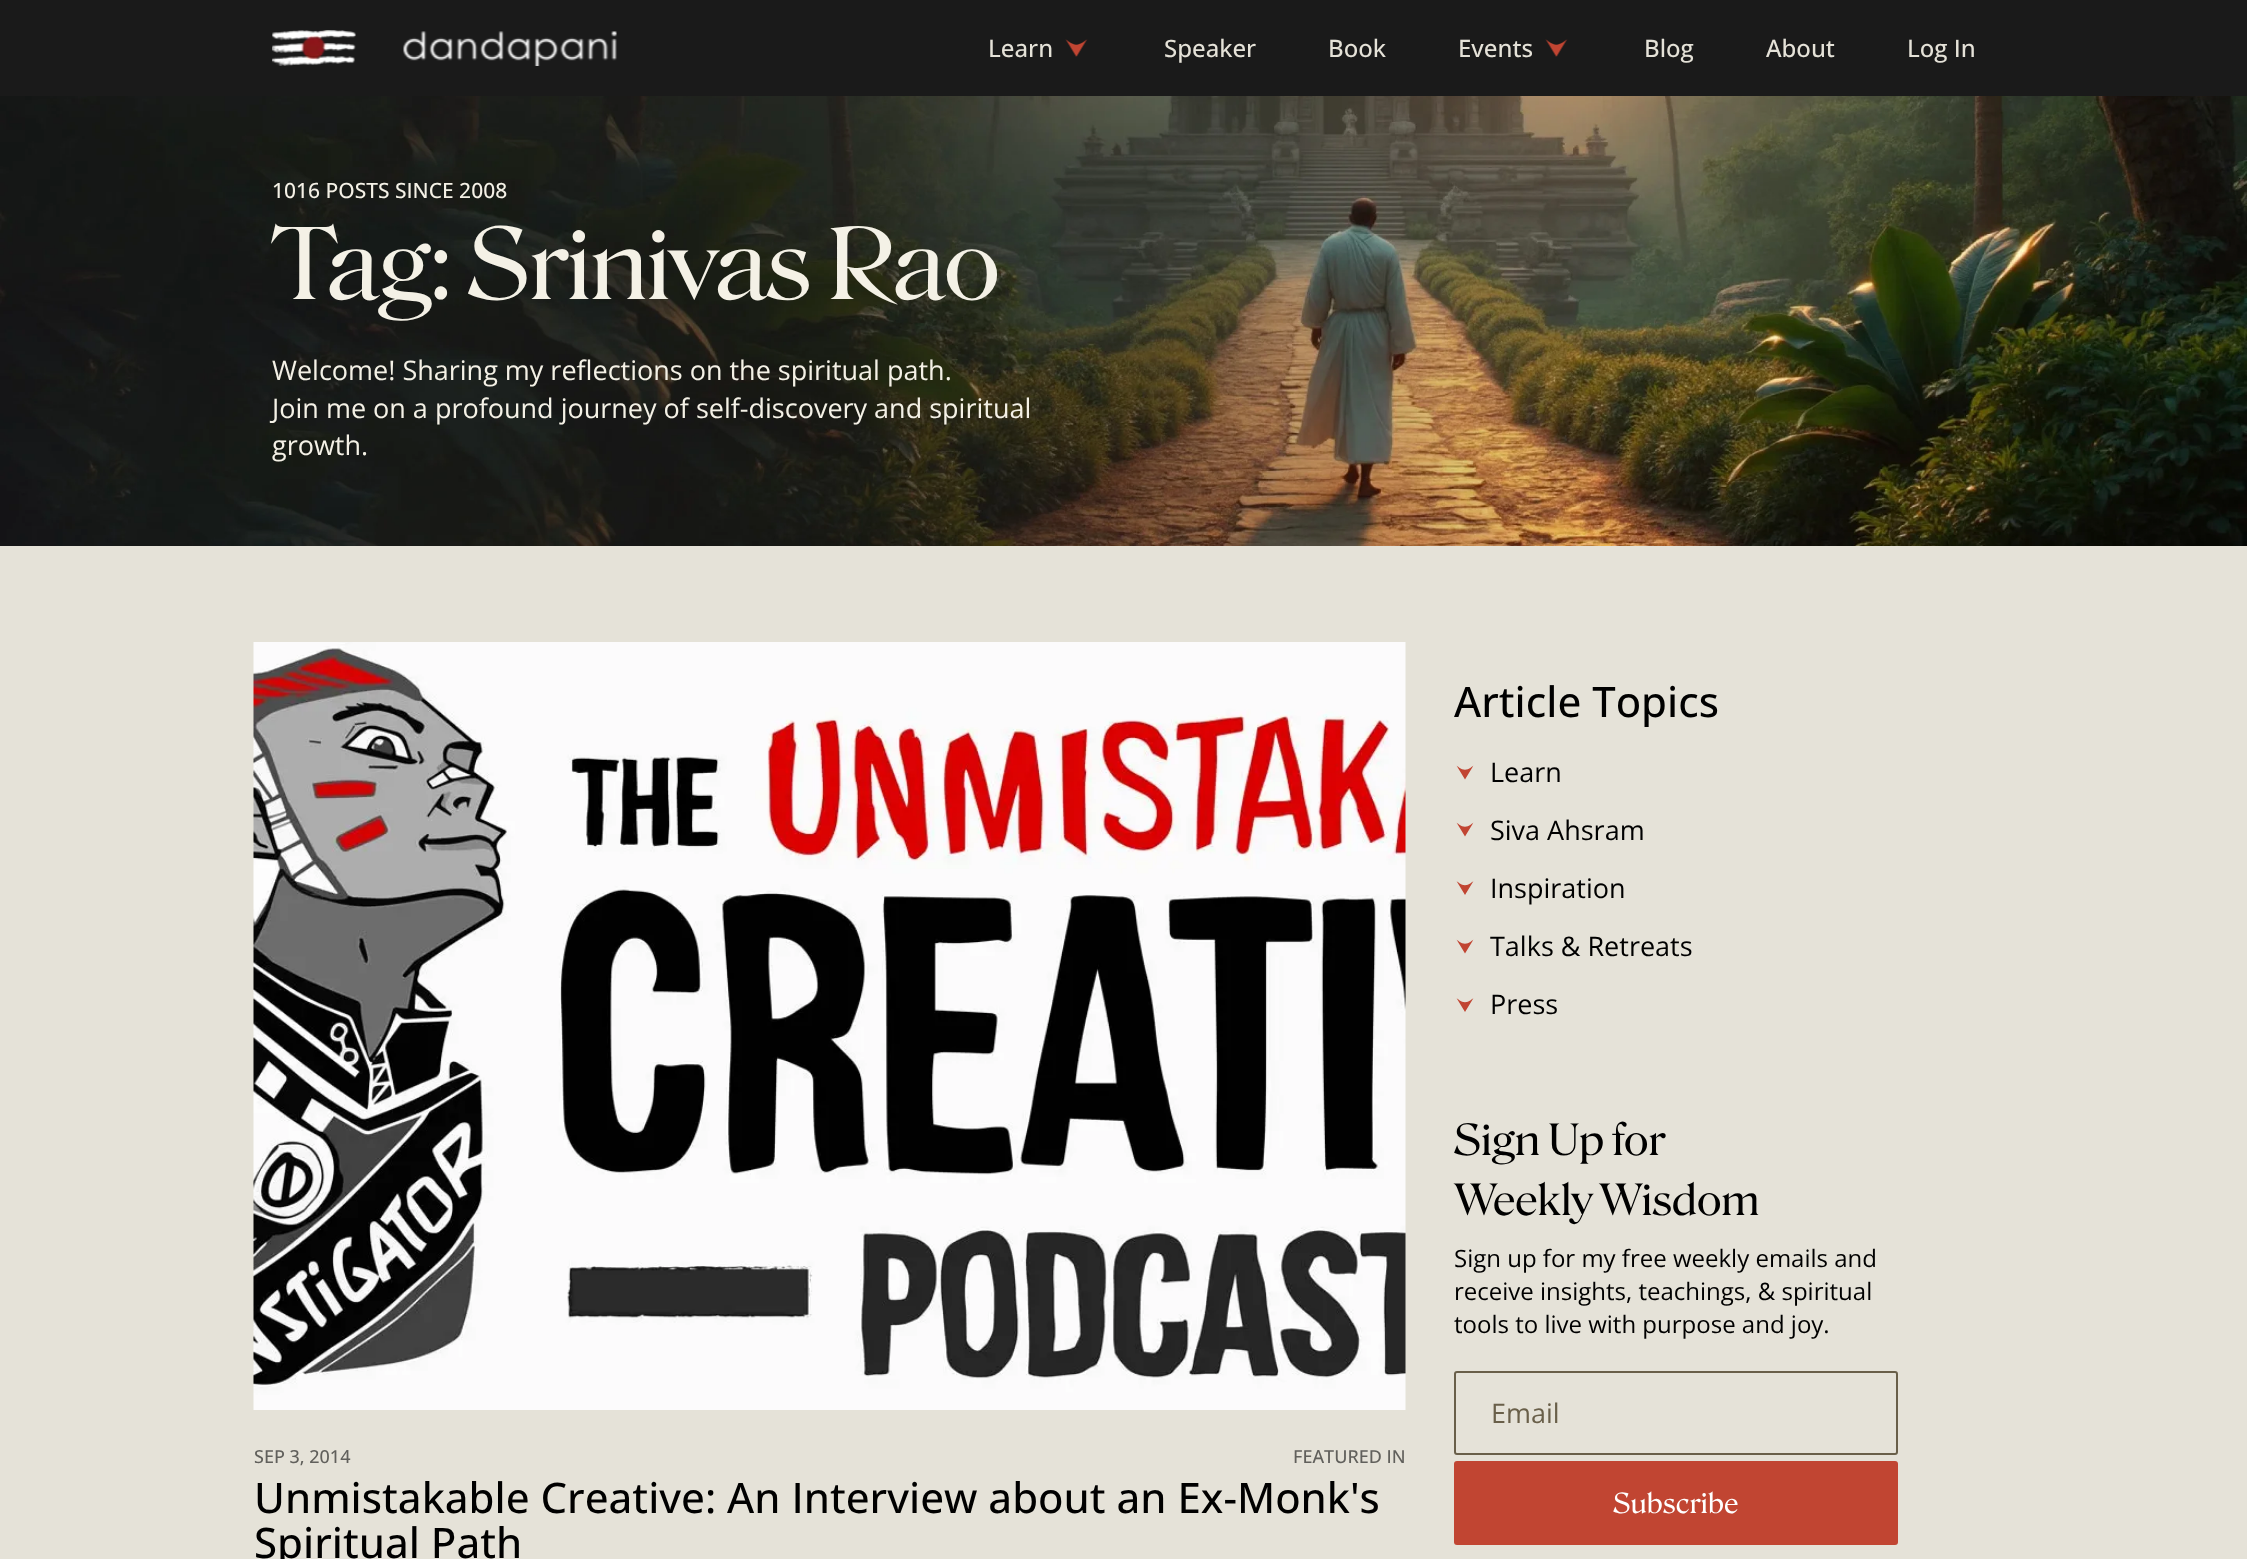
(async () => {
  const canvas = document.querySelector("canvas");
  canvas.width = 2247;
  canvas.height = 1559;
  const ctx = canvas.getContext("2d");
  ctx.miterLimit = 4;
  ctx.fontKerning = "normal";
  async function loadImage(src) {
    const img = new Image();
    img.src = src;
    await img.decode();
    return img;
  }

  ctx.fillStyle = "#e5e2d8";
  ctx.fillRect(0, 0, 2247, 1559);
  ctx.fillStyle = "#1a1a1a";
  ctx.fillRect(0, 0, 2247, 96);
  ctx.drawImage(await loadImage("img/1.png"), 272, 30, 84, 36);
  ctx.drawImage(await loadImage("img/2.png"), 403, 31, 214, 35);
  ctx.drawImage(await loadImage("img/3.png"), 1065, 39, 23, 18);
  ctx.drawImage(await loadImage("img/3.png"), 1545, 39, 23, 18);
  ctx.drawImage(await loadImage("img/4.png"), 0, 96, 2247, 450);
  ctx.drawImage(await loadImage("img/5.png"), 253, 642, 1153, 768);
  ctx.drawImage(await loadImage("img/6.png"), 1456, 765, 18, 15);
  ctx.drawImage(await loadImage("img/6.png"), 1456, 822, 18, 15);
  ctx.drawImage(await loadImage("img/7.png"), 1456, 881, 18, 14);
  ctx.drawImage(await loadImage("img/6.png"), 1456, 939, 18, 15);
  ctx.drawImage(await loadImage("img/7.png"), 1456, 998, 18, 14);
  ctx.beginPath();
  ctx.roundRect(1455, 1372, 442, 82, 2);
  ctx.strokeStyle = "#695f49";
  ctx.lineWidth = 2;
  ctx.stroke();
  ctx.fillStyle = "#c14532";
  ctx.beginPath();
  ctx.roundRect(1454, 1461, 444, 84, 3);
  ctx.fill();
  ctx.font = "500 24px Open Sans";
  ctx.fillStyle = "#e5e2d8";
  for (const [text, x, y] of [
    ["Learn", 988, 57],
    ["Speaker", 1164, 57],
    ["Book", 1328, 57],
    ["Events", 1458, 57],
    ["Blog", 1644, 57],
    ["About", 1766, 57],
    ["Log In", 1907, 57],
  ]) {
    ctx.fillText(text, x, y);
  }
  ctx.font = "500 21px Open Sans";
  ctx.fillStyle = "#f4f1e6";
  ctx.fillText("1016 POSTS SINCE 2008", 272, 198);
  ctx.font = "96px 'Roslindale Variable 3'";
  ctx.fillText("Tag: Srinivas Rao", 272, 299);
  ctx.font = "27px Open Sans";
  for (const [text, x, y] of [
    ["Welcome! Sharing my reflections on the spiritual path.", 272, 380],
    ["Join me on a profound journey of self-discovery and spiritual", 272, 418],
    ["growth.", 272, 455],
  ]) {
    ctx.fillText(text, x, y);
  }
  ctx.font = "500 18px Open Sans";
  ctx.fillStyle = "#61605c";
  ctx.fillText("SEP 3, 2014", 254, 1463);
  ctx.fillText("FEATURED IN", 1293, 1463);
  ctx.font = "500 42px Open Sans";
  ctx.fillStyle = "#000000";
  for (const [text, x, y] of [
    ["Unmistakable Creative: An Interview about an Ex-Monk's", 254, 1513],
    ["Spiritual Path", 254, 1558],
    ["Article Topics", 1454, 717],
  ]) {
    ctx.fillText(text, x, y);
  }
  ctx.font = "27px Open Sans";
  for (const [text, x, y] of [
    ["Learn", 1490, 782],
    ["Siva Ahsram", 1490, 840],
    ["Inspiration", 1490, 898],
    ["Talks & Retreats", 1490, 956],
    ["Press", 1490, 1014],
  ]) {
    ctx.fillText(text, x, y);
  }
  ctx.font = "42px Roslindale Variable";
  ctx.fillText("Sign Up for", 1454, 1155);
  ctx.fillText("Weekly Wisdom", 1454, 1215);
  ctx.font = "24px Open Sans";
  for (const [text, x, y] of [
    ["Sign up for my free weekly emails and", 1454, 1267],
    ["receive insights, teachings, & spiritual", 1454, 1300],
    ["tools to live with purpose and joy.", 1454, 1333],
  ]) {
    ctx.fillText(text, x, y);
  }
  ctx.font = "27px Open Sans";
  ctx.fillStyle = "#695f49";
  ctx.fillText("Email", 1491, 1423);
  ctx.font = "27px 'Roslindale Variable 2'";
  ctx.fillStyle = "#ffffff";
  ctx.fillText("Subscribe", 1613, 1513);
})();
